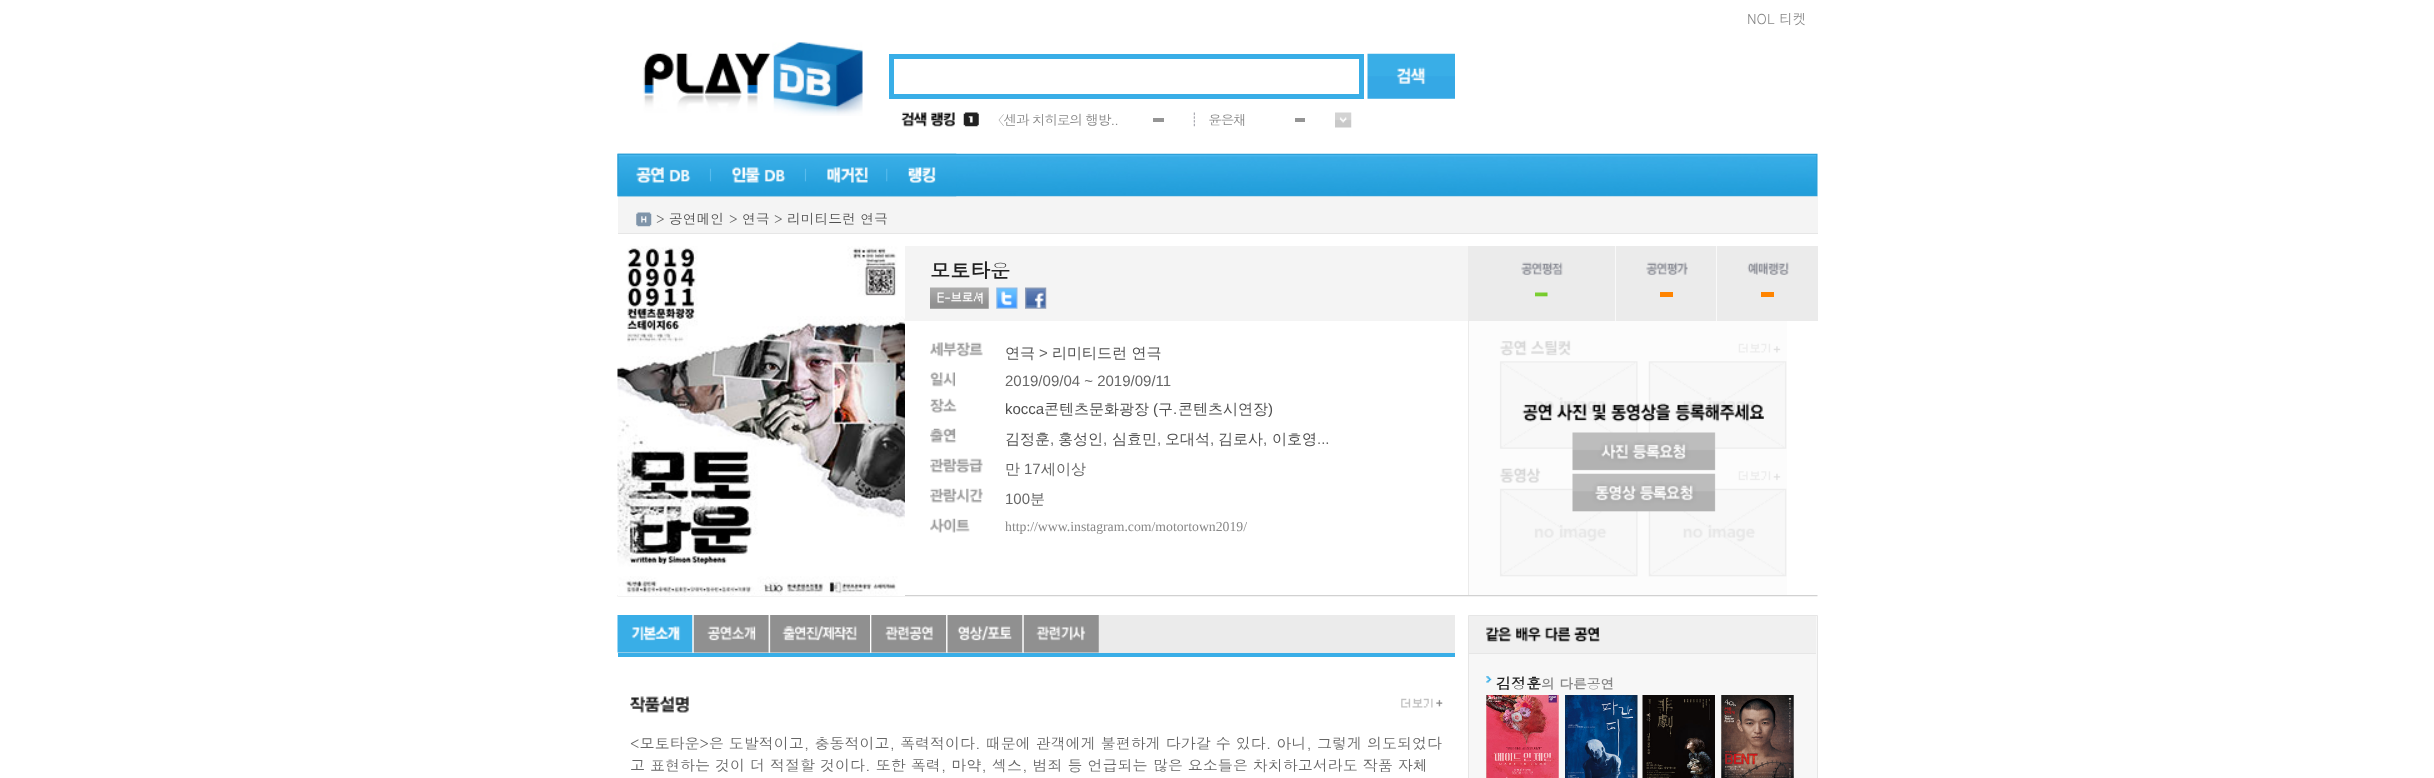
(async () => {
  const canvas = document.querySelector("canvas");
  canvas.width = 2434;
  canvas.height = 778;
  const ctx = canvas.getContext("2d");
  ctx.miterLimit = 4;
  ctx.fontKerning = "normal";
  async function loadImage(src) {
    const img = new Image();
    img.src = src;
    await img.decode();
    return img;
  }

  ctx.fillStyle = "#ffffff";
  ctx.fillRect(0, 0, 2434, 778);
  ctx.drawImage(await loadImage("img/1.png"), 643, 42, 220, 74);
  ctx.strokeStyle = "#39aee7";
  ctx.lineWidth = 5;
  ctx.strokeRect(891.5, 56.5, 470, 40);
  ctx.drawImage(await loadImage("img/2.png"), 1367, 53, 88, 46);
  ctx.drawImage(await loadImage("img/3.png"), 901, 112, 54, 15);
  ctx.drawImage(await loadImage("img/4.png"), 963, 112, 16, 15);
  ctx.fillStyle = "#959595";
  ctx.fillRect(1153, 118, 11, 4);
  ctx.drawImage(await loadImage("img/5.png"), 1193, 112, 2, 15);
  ctx.fillRect(1295, 118, 10, 4);
  ctx.drawImage(await loadImage("img/6.png"), 1335, 112, 17, 16);
  ctx.fillStyle = "#f4f4f4";
  ctx.fillRect(618, 196, 1200, 37);
  ctx.drawImage(await loadImage("img/7.png"), 617, 153, 1201, 44);
  ctx.drawImage(await loadImage("img/8.png"), 617, 153, 95, 44);
  ctx.drawImage(await loadImage("img/9.png"), 711, 153, 96, 44);
  ctx.drawImage(await loadImage("img/10.png"), 806, 153, 82, 44);
  ctx.drawImage(await loadImage("img/11.png"), 887, 153, 70, 44);
  ctx.fillStyle = "#e6e6e6";
  ctx.fillRect(618, 233, 1200, 1);
  ctx.drawImage(await loadImage("img/12.png"), 636, 212, 16, 15);
  ctx.drawImage(await loadImage("img/13.png"), 617, 595, 1201, 2);
  ctx.drawImage(await loadImage("img/14.png"), 617, 246, 288, 350);
  ctx.fillStyle = "#f4f4f4";
  ctx.fillRect(905, 246, 563, 75);
  ctx.drawImage(await loadImage("img/15.png"), 930, 287, 59, 22);
  ctx.drawImage(await loadImage("img/16.png"), 996, 287, 22, 22);
  ctx.drawImage(await loadImage("img/17.png"), 1025, 287, 22, 22);
  ctx.drawImage(await loadImage("img/18.png"), 930, 342, 53, 15);
  ctx.drawImage(await loadImage("img/19.png"), 930, 372, 25, 15);
  ctx.drawImage(await loadImage("img/20.png"), 930, 398, 27, 15);
  ctx.drawImage(await loadImage("img/21.png"), 930, 428, 27, 15);
  ctx.drawImage(await loadImage("img/22.png"), 930, 458, 53, 15);
  ctx.drawImage(await loadImage("img/23.png"), 930, 488, 53, 15);
  ctx.drawImage(await loadImage("img/24.png"), 930, 518, 40, 15);
  ctx.fillStyle = "#ebebeb";
  ctx.fillRect(1468, 246, 350, 75);
  ctx.drawImage(await loadImage("img/25.png"), 1521, 262, 42, 13);
  ctx.drawImage(await loadImage("img/26.png"), 1535, 292, 13, 5);
  ctx.fillStyle = "#f9f9f9";
  ctx.fillRect(1615, 246, 1, 75);
  ctx.drawImage(await loadImage("img/27.png"), 1646, 262, 42, 13);
  ctx.fillStyle = "#ff8400";
  ctx.fillRect(1660, 292, 13, 5);
  ctx.fillStyle = "#f9f9f9";
  ctx.fillRect(1716, 246, 1, 75);
  ctx.drawImage(await loadImage("img/28.png"), 1747, 262, 42, 13);
  ctx.fillStyle = "#ff8400";
  ctx.fillRect(1761, 292, 13, 5);
  ctx.fillStyle = "#e6e6e6";
  ctx.fillRect(1468, 321, 1, 274);
  ctx.drawImage(await loadImage("img/29.png"), 1468, 321, 319, 274);
  ctx.fillStyle = "#f7f7f7";
  ctx.beginPath();
  ctx.rect(1468.5, 615.5, 349, 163);
  ctx.fill();
  ctx.strokeStyle = "#e6e6e6";
  ctx.lineWidth = 1;
  ctx.stroke();
  ctx.fillStyle = "#f0f0f0";
  ctx.fillRect(1469, 616, 347, 37);
  ctx.fillStyle = "#e6e6e6";
  ctx.fillRect(1469, 653, 347, 1);
  ctx.drawImage(await loadImage("img/30.png"), 1486, 627, 114, 15);
  ctx.drawImage(await loadImage("img/31.png"), 1486, 676, 6, 7);
  ctx.drawImage(await loadImage("img/32.png"), 1486, 695, 73, 83);
  ctx.drawImage(await loadImage("img/33.png"), 1565, 695, 73, 83);
  ctx.drawImage(await loadImage("img/34.png"), 1642, 695, 73, 83);
  ctx.drawImage(await loadImage("img/35.png"), 1721, 695, 73, 83);
  ctx.fillStyle = "#ebebeb";
  ctx.fillRect(618, 615, 837, 38);
  ctx.fillStyle = "#39aee7";
  ctx.fillRect(618, 653, 837, 4);
  ctx.drawImage(await loadImage("img/36.png"), 617, 615, 76, 38);
  ctx.drawImage(await loadImage("img/37.png"), 692, 615, 77, 38);
  ctx.drawImage(await loadImage("img/38.png"), 768, 615, 102, 38);
  ctx.drawImage(await loadImage("img/39.png"), 870, 615, 77, 38);
  ctx.drawImage(await loadImage("img/40.png"), 946, 615, 77, 38);
  ctx.drawImage(await loadImage("img/41.png"), 1022, 615, 77, 38);
  ctx.drawImage(await loadImage("img/42.png"), 630, 696, 59, 17);
  ctx.drawImage(await loadImage("img/43.png"), 1401, 698, 42, 10);
  ctx.font = "13.75px Dotum";
  ctx.fillStyle = "#888888";
  ctx.fillText("NOL 티켓", 1747, 24);
  ctx.letterSpacing = "-1.25px";
  ctx.fillText("〈센과 치히로의 행방..", 991, 125);
  ctx.fillText("윤은채", 1208, 125);
  ctx.letterSpacing = "0px";
  ctx.fillStyle = "#666666";
  ctx.fillText(">", 656, 224);
  ctx.fillStyle = "#4f4f4f";
  ctx.fillText("공연메인", 669, 224);
  ctx.fillStyle = "#666666";
  ctx.fillText(">", 729, 224);
  ctx.fillStyle = "#4f4f4f";
  ctx.fillText("연극", 742, 224);
  ctx.fillStyle = "#666666";
  ctx.fillText(">", 774, 224);
  ctx.fillStyle = "#4f4f4f";
  ctx.fillText("리미티드런 연극", 787, 224);
  ctx.font = "bold 20px Dotum";
  ctx.fillStyle = "#222222";
  ctx.fillText("모토타운", 930, 278);
  ctx.font = "500 15px WenQuanYi Zen Hei";
  ctx.fillStyle = "#4f4f4f";
  ctx.fillText("연극", 1005, 358);
  ctx.font = "15px Liberation Sans";
  ctx.fillStyle = "#666666";
  ctx.fillText(">", 1039, 358);
  ctx.font = "500 15px WenQuanYi Zen Hei";
  ctx.fillStyle = "#4f4f4f";
  ctx.fillText("리미티드런 연극", 1052, 358);
  ctx.font = "15px Liberation Sans";
  ctx.fillStyle = "#666666";
  ctx.fillText("2019/09/04 ~ 2019/09/11", 1005, 386);
  ctx.fillStyle = "#4f4f4f";
  ctx.fillText("kocca", 1005, 414);
  ctx.font = "500 15px WenQuanYi Zen Hei";
  ctx.fillText("콘텐츠문화광장", 1044, 414);
  ctx.font = "15px Liberation Sans";
  ctx.fillText("(", 1153, 414);
  ctx.font = "500 15px WenQuanYi Zen Hei";
  ctx.fillText("구", 1158, 414);
  ctx.font = "15px Liberation Sans";
  ctx.fillText(".", 1173, 414);
  ctx.font = "500 15px WenQuanYi Zen Hei";
  ctx.fillText("콘텐츠시연장", 1178, 414);
  ctx.font = "15px Liberation Sans";
  ctx.fillText(")", 1268, 414);
  ctx.font = "500 15px WenQuanYi Zen Hei";
  ctx.fillText("김정훈", 1005, 444);
  ctx.font = "15px Liberation Sans";
  ctx.fillStyle = "#666666";
  ctx.fillText(",", 1050, 444);
  ctx.font = "500 15px WenQuanYi Zen Hei";
  ctx.fillStyle = "#4f4f4f";
  ctx.fillText("홍성인", 1058, 444);
  ctx.font = "15px Liberation Sans";
  ctx.fillStyle = "#666666";
  ctx.fillText(",", 1103, 444);
  ctx.font = "500 15px WenQuanYi Zen Hei";
  ctx.fillStyle = "#4f4f4f";
  ctx.fillText("심효민", 1112, 444);
  ctx.font = "15px Liberation Sans";
  ctx.fillStyle = "#666666";
  ctx.fillText(",", 1157, 444);
  ctx.font = "500 15px WenQuanYi Zen Hei";
  ctx.fillStyle = "#4f4f4f";
  ctx.fillText("오대석", 1165, 444);
  ctx.font = "15px Liberation Sans";
  ctx.fillStyle = "#666666";
  ctx.fillText(",", 1210, 444);
  ctx.font = "500 15px WenQuanYi Zen Hei";
  ctx.fillStyle = "#4f4f4f";
  ctx.fillText("김로사", 1218, 444);
  ctx.font = "15px Liberation Sans";
  ctx.fillStyle = "#666666";
  ctx.fillText(",", 1263, 444);
  ctx.font = "500 15px WenQuanYi Zen Hei";
  ctx.fillStyle = "#4f4f4f";
  ctx.fillText("이호영", 1272, 444);
  ctx.font = "15px Liberation Sans";
  ctx.fillStyle = "#666666";
  ctx.fillText("...", 1317, 444);
  ctx.font = "500 15px WenQuanYi Zen Hei";
  ctx.fillText("만", 1005, 474);
  ctx.font = "15px Liberation Sans";
  ctx.fillText("17", 1024, 474);
  ctx.font = "500 15px WenQuanYi Zen Hei";
  ctx.fillText("세이상", 1041, 474);
  ctx.font = "15px Liberation Sans";
  ctx.fillText("100", 1005, 504);
  ctx.font = "500 15px WenQuanYi Zen Hei";
  ctx.fillText("분", 1030, 504);
  ctx.font = "13.75px Liberation Serif";
  ctx.fillStyle = "#888888";
  ctx.fillText("http://www.instagram.com/motortown2019/", 1005, 531);
  ctx.font = "bold 15px Dotum";
  ctx.fillStyle = "#222222";
  ctx.fillText("김정훈", 1496, 689);
  ctx.font = "bold 13.75px Dotum";
  ctx.fillStyle = "#888888";
  ctx.fillText("의 다른공연", 1541, 689);
  ctx.font = "15px Dotum";
  ctx.fillStyle = "#666666";
  ctx.fillText("<모토타운>은 도발적이고, 충동적이고, 폭력적이다. 때문에 관객에게 불편하게 다가갈 수 있다. 아니, 그렇게 의도되었다", 630, 749);
  ctx.fillText("고 표현하는 것이 더 적절할 것이다. 또한 폭력, 마약, 섹스, 범죄 등 언급되는 많은 요소들은 차치하고서라도 작품 자체", 630, 771);
})();
